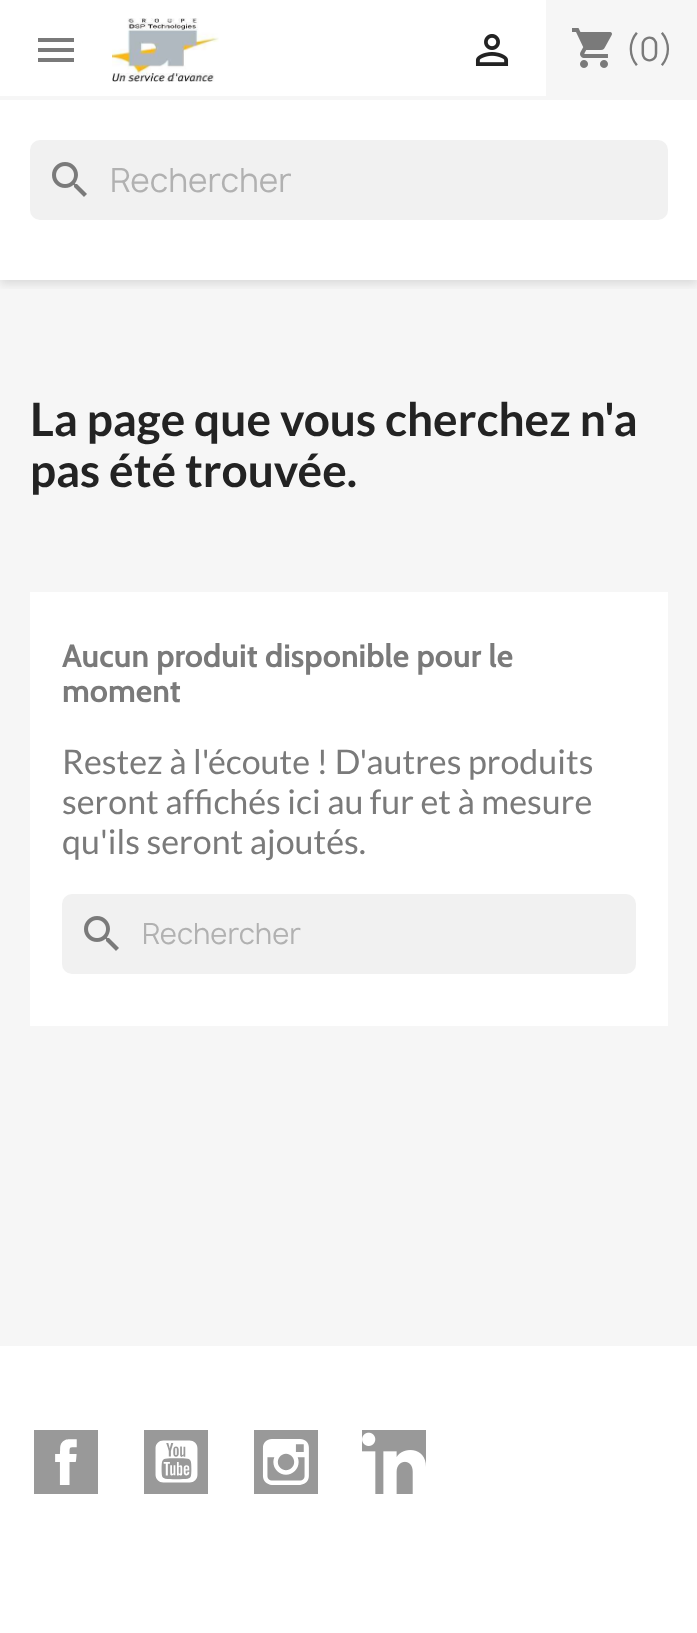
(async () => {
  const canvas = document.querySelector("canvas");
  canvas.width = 697;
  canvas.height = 1633;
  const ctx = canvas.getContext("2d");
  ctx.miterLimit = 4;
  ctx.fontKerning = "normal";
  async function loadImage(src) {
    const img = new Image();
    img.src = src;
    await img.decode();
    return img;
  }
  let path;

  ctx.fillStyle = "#ffffff";
  ctx.fillRect(0, 0, 697, 1633);
  ctx.fillStyle = "#f6f6f6";
  ctx.fillRect(0, 280, 697, 1066);
  ctx.save();
  ctx.beginPath();
  ctx.rect(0, 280, 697, 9);
  ctx.clip();
  ctx.fillStyle = "rgba(0, 0, 0, 0.11)";
  ctx.filter = "blur(5px)";
  ctx.beginPath();
  ctx.rect(0, 4, 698, 280);
  ctx.fill();
  ctx.filter = "none";
  ctx.restore();
  ctx.fillRect(0, 96, 697, 4);
  ctx.fillStyle = "#7a7a7a";
  path = new Path2D("M38 38H74V42H38ZM38 52V48H74V52ZM38 62V58H74V62Z");
  ctx.fill(path);
  ctx.drawImage(await loadImage("img/1.png"), 112, 18, 107, 64);
  ctx.drawImage(await loadImage("img/2.png"), 475, 34, 34, 32);
  ctx.fillStyle = "#f6f6f6";
  ctx.fillRect(546, 0, 151, 96);
  ctx.drawImage(await loadImage("img/3.png"), 572, 28, 40, 40);
  ctx.fillStyle = "#f1f1f1";
  ctx.beginPath();
  ctx.roundRect(30, 140, 638, 80, 10);
  ctx.fill();
  ctx.drawImage(await loadImage("img/4.png"), 52, 162, 35, 35);
  ctx.fillStyle = "#ffffff";
  ctx.fillRect(30, 592, 638, 434);
  ctx.fillStyle = "#f1f1f1";
  ctx.beginPath();
  ctx.roundRect(62, 894, 574, 80, 10);
  ctx.fill();
  ctx.drawImage(await loadImage("img/4.png"), 84, 916, 35, 35);
  ctx.fillStyle = "#999999";
  ctx.fillRect(34, 1430, 64, 64);
  ctx.drawImage(await loadImage("img/5.png"), 55, 1439, 22, 46);
  ctx.fillRect(144, 1430, 64, 64);
  ctx.drawImage(await loadImage("img/6.png"), 155, 1440, 43, 43);
  ctx.fillRect(254, 1430, 64, 64);
  ctx.drawImage(await loadImage("img/7.png"), 262, 1439, 47, 46);
  ctx.fillRect(362, 1430, 64, 64);
  ctx.drawImage(await loadImage("img/8.png"), 362, 1432, 64, 62);
  ctx.font = "32px Manrope";
  ctx.fillStyle = "#7a7a7a";
  ctx.fillText("(0)", 625, 61);
  ctx.fillStyle = "#b1b1b1";
  ctx.fillText("Rechercher", 110, 192);
  ctx.font = "bold 46px Lato";
  ctx.fillStyle = "#232323";
  ctx.fillText("La page que vous cherchez n'a", 30, 436);
  ctx.fillText("pas été trouvée.", 30, 487);
  ctx.font = "bold 32px Cabin";
  ctx.fillStyle = "#7a7a7a";
  ctx.fillText("Aucun produit disponible pour le", 62, 667);
  ctx.fillText("moment", 62, 702);
  ctx.font = "34px Lato";
  for (const [text, x, y] of [
    ["Restez à l'écoute ! D'autres produits", 62, 774],
    ["seront affichés ici au fur et à mesure", 62, 814],
    ["qu'ils seront ajoutés.", 62, 854],
  ]) {
    ctx.fillText(text, x, y);
  }
  ctx.font = "28px Manrope";
  ctx.fillStyle = "#b1b1b1";
  ctx.fillText("Rechercher", 142, 944);
})();
